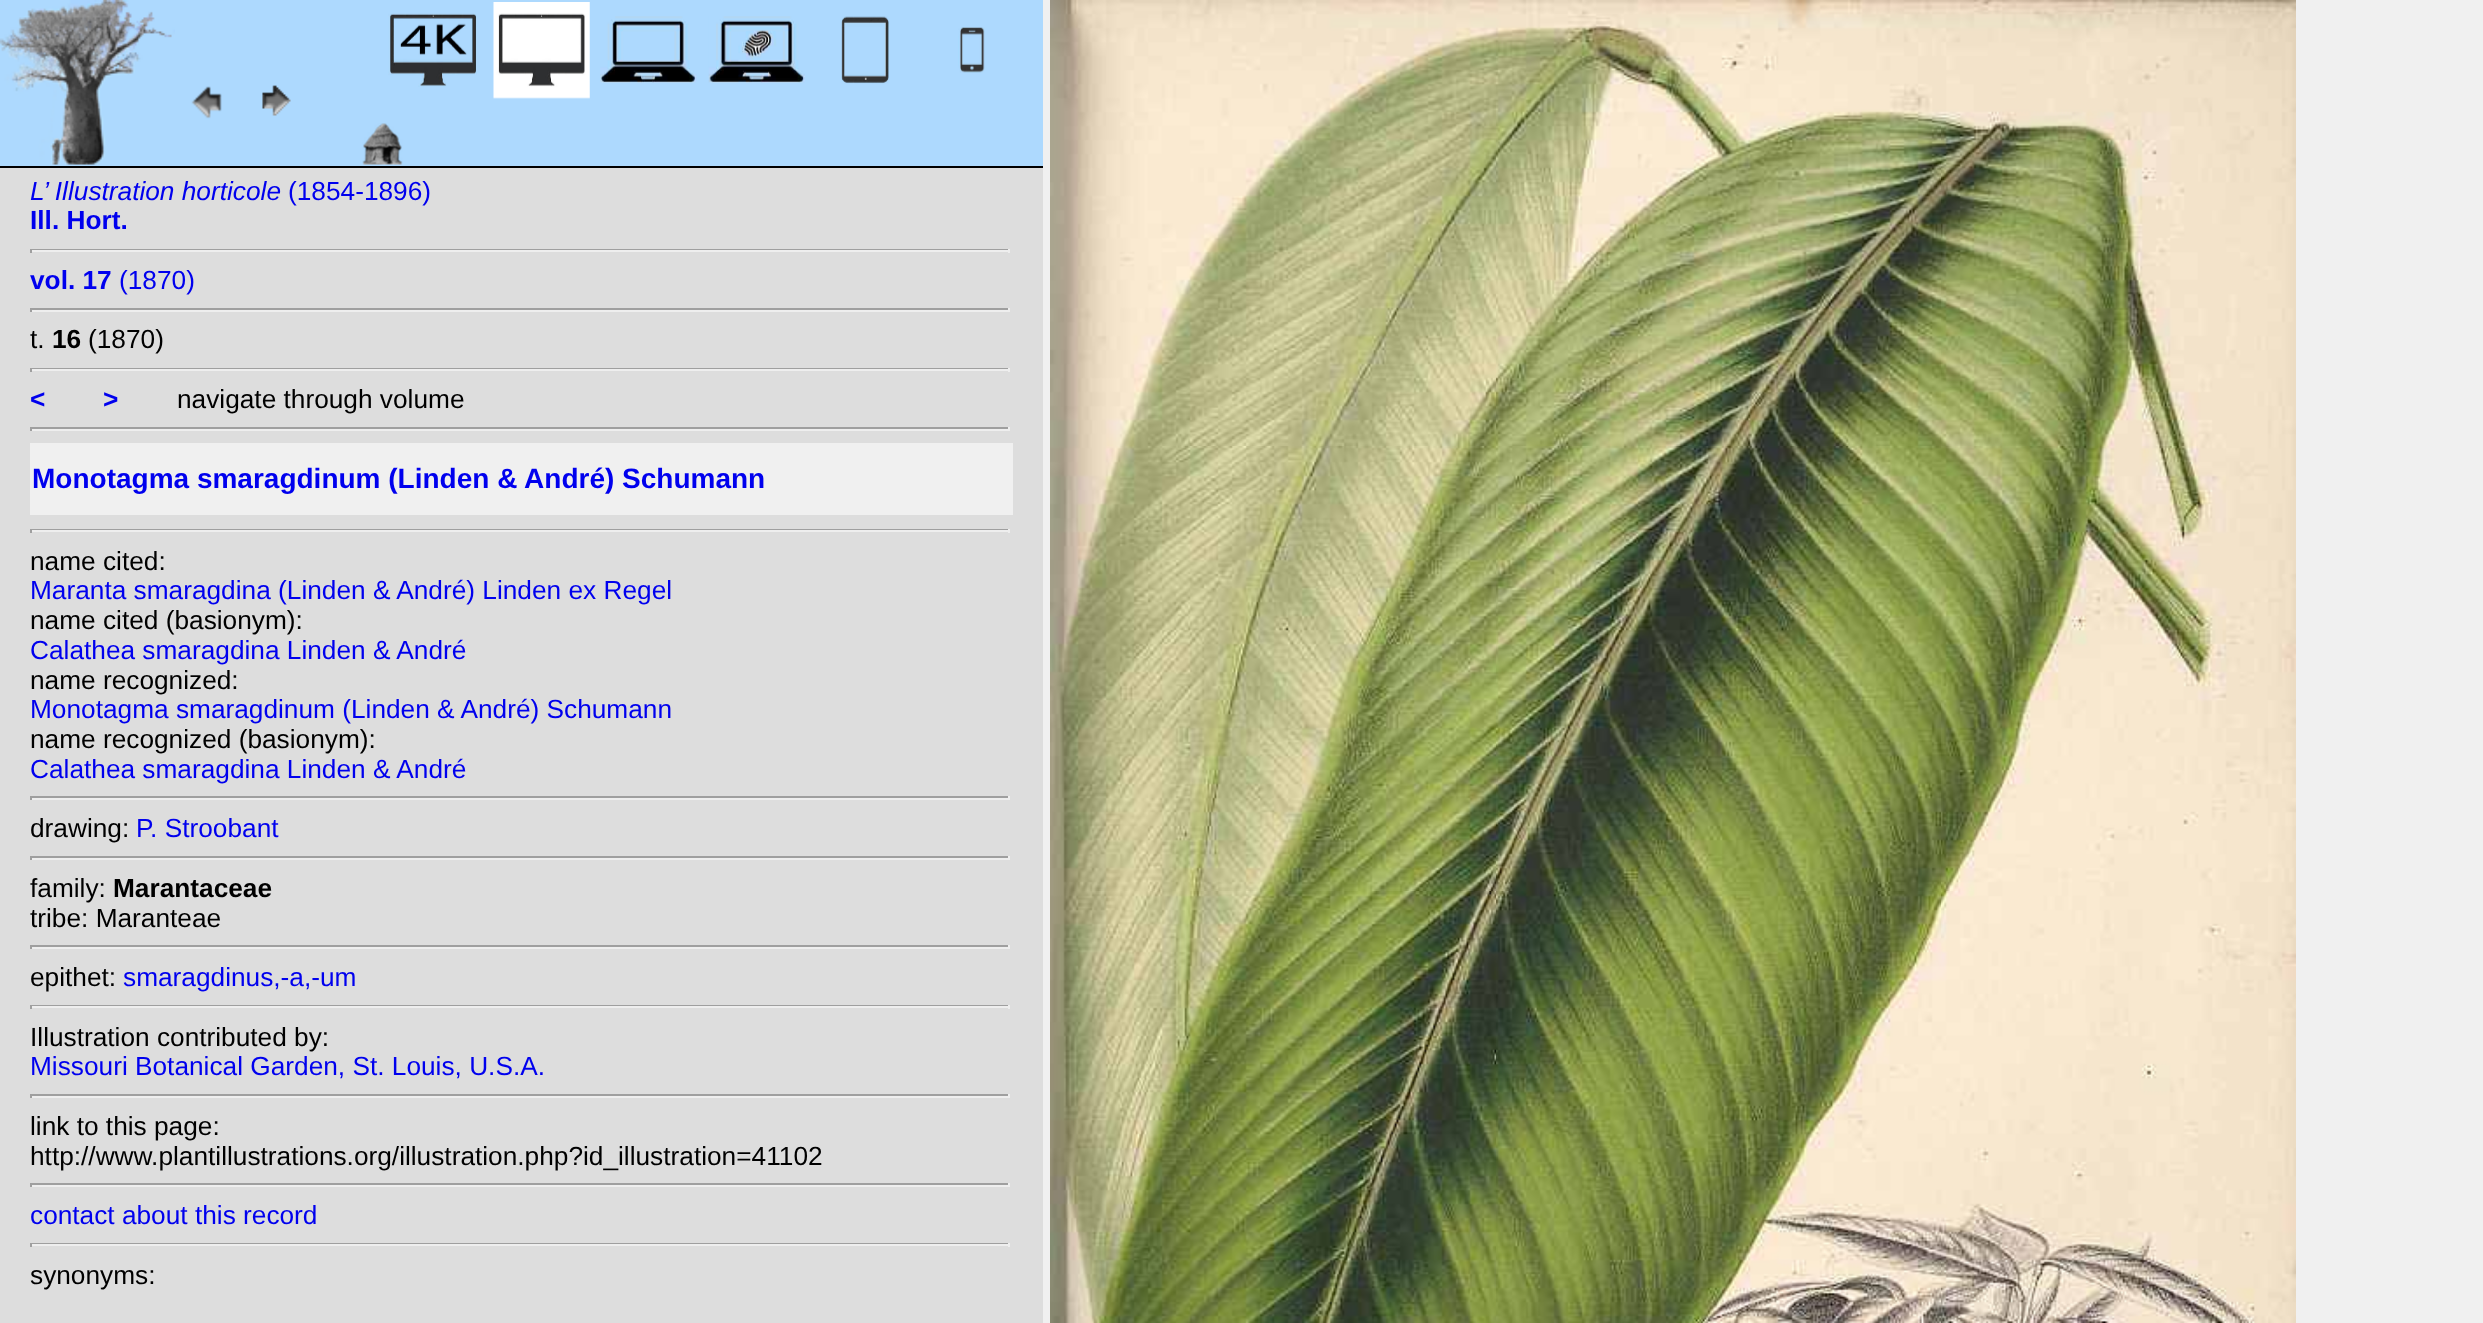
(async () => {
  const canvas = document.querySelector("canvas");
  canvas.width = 2483;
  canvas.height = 1323;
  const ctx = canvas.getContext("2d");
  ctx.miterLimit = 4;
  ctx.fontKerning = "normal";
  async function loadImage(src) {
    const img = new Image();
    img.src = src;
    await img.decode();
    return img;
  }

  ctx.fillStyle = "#f0f0f0";
  ctx.fillRect(0, 0, 2483, 1323);
  for (const [x, y, w, h, color] of [
    [0, 168, 1043, 1155, "#dddddd"],
    [0, 0, 1043, 166, "#add9fe"],
    [0, 166, 1043, 2, "#000000"],
  ]) {
    ctx.fillStyle = color;
    ctx.fillRect(x, y, w, h);
  }
  ctx.drawImage(await loadImage("img/1.png"), 0, 0, 175, 165);
  ctx.drawImage(await loadImage("img/2.png"), 191, 86, 31, 33);
  ctx.drawImage(await loadImage("img/3.png"), 262, 85, 29, 31);
  ctx.drawImage(await loadImage("img/4.png"), 388, 13, 89, 74);
  ctx.drawImage(await loadImage("img/5.png"), 493, 2, 97, 97);
  ctx.drawImage(await loadImage("img/6.png"), 600, 16, 97, 67);
  ctx.drawImage(await loadImage("img/7.png"), 708, 16, 97, 67);
  ctx.drawImage(await loadImage("img/8.png"), 841, 16, 48, 68);
  ctx.drawImage(await loadImage("img/9.png"), 958, 27, 27, 46);
  ctx.drawImage(await loadImage("img/10.png"), 362, 123, 41, 42);
  for (const [x, y, w, h, color] of [
    [30, 249, 980, 1, "#9f9f9f"],
    [1008, 249, 2, 4, "#eeeeee"],
    [30, 250, 980, 2, "#eeeeee"],
    [30, 249, 2, 4, "#9f9f9f"],
    [30, 308, 980, 2, "#9f9f9f"],
    [1008, 308, 2, 4, "#eeeeee"],
    [30, 310, 980, 2, "#eeeeee"],
    [30, 308, 2, 4, "#9f9f9f"],
    [30, 368, 980, 1, "#9f9f9f"],
    [1008, 368, 2, 4, "#eeeeee"],
    [30, 369, 980, 2, "#eeeeee"],
    [30, 368, 2, 4, "#9f9f9f"],
    [30, 427, 980, 2, "#9f9f9f"],
    [1008, 427, 2, 4, "#eeeeee"],
    [30, 429, 980, 2, "#eeeeee"],
    [30, 427, 2, 4, "#9f9f9f"],
    [30, 443, 983, 72, "#f0f0f0"],
    [30, 529, 980, 1, "#9f9f9f"],
    [1008, 529, 2, 4, "#eeeeee"],
    [30, 530, 980, 2, "#eeeeee"],
    [30, 529, 2, 4, "#9f9f9f"],
    [30, 796, 980, 2, "#9f9f9f"],
    [1008, 796, 2, 4, "#eeeeee"],
    [30, 798, 980, 2, "#eeeeee"],
    [30, 796, 2, 4, "#9f9f9f"],
    [30, 856, 980, 2, "#9f9f9f"],
    [1008, 856, 2, 4, "#eeeeee"],
    [30, 858, 980, 2, "#eeeeee"],
    [30, 856, 2, 4, "#9f9f9f"],
    [30, 945, 980, 2, "#9f9f9f"],
    [1008, 945, 2, 4, "#eeeeee"],
    [30, 947, 980, 2, "#eeeeee"],
    [30, 945, 2, 4, "#9f9f9f"],
    [30, 1005, 980, 1, "#9f9f9f"],
    [1008, 1005, 2, 4, "#eeeeee"],
    [30, 1006, 980, 2, "#eeeeee"],
    [30, 1005, 2, 4, "#9f9f9f"],
    [30, 1094, 980, 2, "#9f9f9f"],
    [1008, 1094, 2, 4, "#eeeeee"],
    [30, 1096, 980, 2, "#eeeeee"],
    [30, 1094, 2, 4, "#9f9f9f"],
    [30, 1183, 980, 2, "#9f9f9f"],
    [1008, 1183, 2, 4, "#eeeeee"],
    [30, 1185, 980, 2, "#eeeeee"],
    [30, 1183, 2, 4, "#9f9f9f"],
    [30, 1243, 980, 1, "#9f9f9f"],
    [1008, 1243, 2, 4, "#eeeeee"],
    [30, 1244, 980, 2, "#eeeeee"],
    [30, 1243, 2, 4, "#9f9f9f"],
  ]) {
    ctx.fillStyle = color;
    ctx.fillRect(x, y, w, h);
  }
  ctx.drawImage(await loadImage("img/11.png"), 1050, 0, 1246, 1323);
  ctx.font = "italic 26.25px Liberation Sans";
  ctx.fillStyle = "#0000ee";
  ctx.fillText("L’ Illustration horticole", 30, 200);
  ctx.font = "26.25px Liberation Sans";
  ctx.fillText("(1854-1896)", 288, 200);
  ctx.font = "bold 26.25px Liberation Sans";
  ctx.fillText("Ill. Hort.", 30, 229);
  ctx.fillText("vol. 17", 30, 289);
  ctx.font = "26.25px Liberation Sans";
  ctx.fillText("(1870)", 119, 289);
  ctx.fillStyle = "#000000";
  ctx.fillText("t.", 30, 348);
  ctx.font = "bold 26.25px Liberation Sans";
  ctx.fillText("16", 52, 348);
  ctx.font = "26.25px Liberation Sans";
  ctx.fillText("(1870)", 88, 348);
  ctx.font = "bold 26.25px Liberation Sans";
  ctx.fillStyle = "#0000ee";
  ctx.fillText("<", 30, 408);
  ctx.fillText(">", 103, 408);
  ctx.font = "26.25px Liberation Sans";
  ctx.fillStyle = "#000000";
  ctx.fillText("navigate through volume", 177, 408);
  ctx.font = "bold 28px Liberation Sans";
  ctx.fillStyle = "#0000ee";
  ctx.fillText("Monotagma smaragdinum (Linden & André) Schumann", 32, 488);
  ctx.font = "26.25px Liberation Sans";
  ctx.fillStyle = "#000000";
  ctx.fillText("name cited:", 30, 570);
  ctx.fillStyle = "#0000ee";
  ctx.fillText("Maranta smaragdina (Linden & André) Linden ex Regel", 30, 599);
  ctx.fillStyle = "#000000";
  ctx.fillText("name cited (basionym):", 30, 629);
  ctx.fillStyle = "#0000ee";
  ctx.fillText("Calathea smaragdina Linden & André", 30, 659);
  ctx.fillStyle = "#000000";
  ctx.fillText("name recognized:", 30, 689);
  ctx.fillStyle = "#0000ee";
  ctx.fillText("Monotagma smaragdinum (Linden & André) Schumann", 30, 718);
  ctx.fillStyle = "#000000";
  ctx.fillText("name recognized (basionym):", 30, 748);
  ctx.fillStyle = "#0000ee";
  ctx.fillText("Calathea smaragdina Linden & André", 30, 778);
  ctx.fillStyle = "#000000";
  ctx.fillText("drawing:", 30, 837);
  ctx.fillStyle = "#0000ee";
  ctx.fillText("P. Stroobant", 136, 837);
  ctx.fillStyle = "#000000";
  ctx.fillText("family:", 30, 897);
  ctx.font = "bold 26.25px Liberation Sans";
  ctx.fillText("Marantaceae", 113, 897);
  ctx.font = "26.25px Liberation Sans";
  ctx.fillText("tribe: Maranteae", 30, 927);
  ctx.fillText("epithet:", 30, 986);
  ctx.fillStyle = "#0000ee";
  ctx.fillText("smaragdinus,-a,-um", 123, 986);
  ctx.fillStyle = "#000000";
  ctx.fillText("Illustration contributed by:", 30, 1046);
  ctx.fillStyle = "#0000ee";
  ctx.fillText("Missouri Botanical Garden, St. Louis, U.S.A.", 30, 1075);
  ctx.fillStyle = "#000000";
  ctx.fillText("link to this page:", 30, 1135);
  ctx.fillText("http://www.plantillustrations.org/illustration.php?id_illustration=41102", 30, 1165);
  ctx.fillStyle = "#0000ee";
  ctx.fillText("contact about this record", 30, 1224);
  ctx.fillStyle = "#000000";
  ctx.fillText("synonyms:", 30, 1284);
})();
